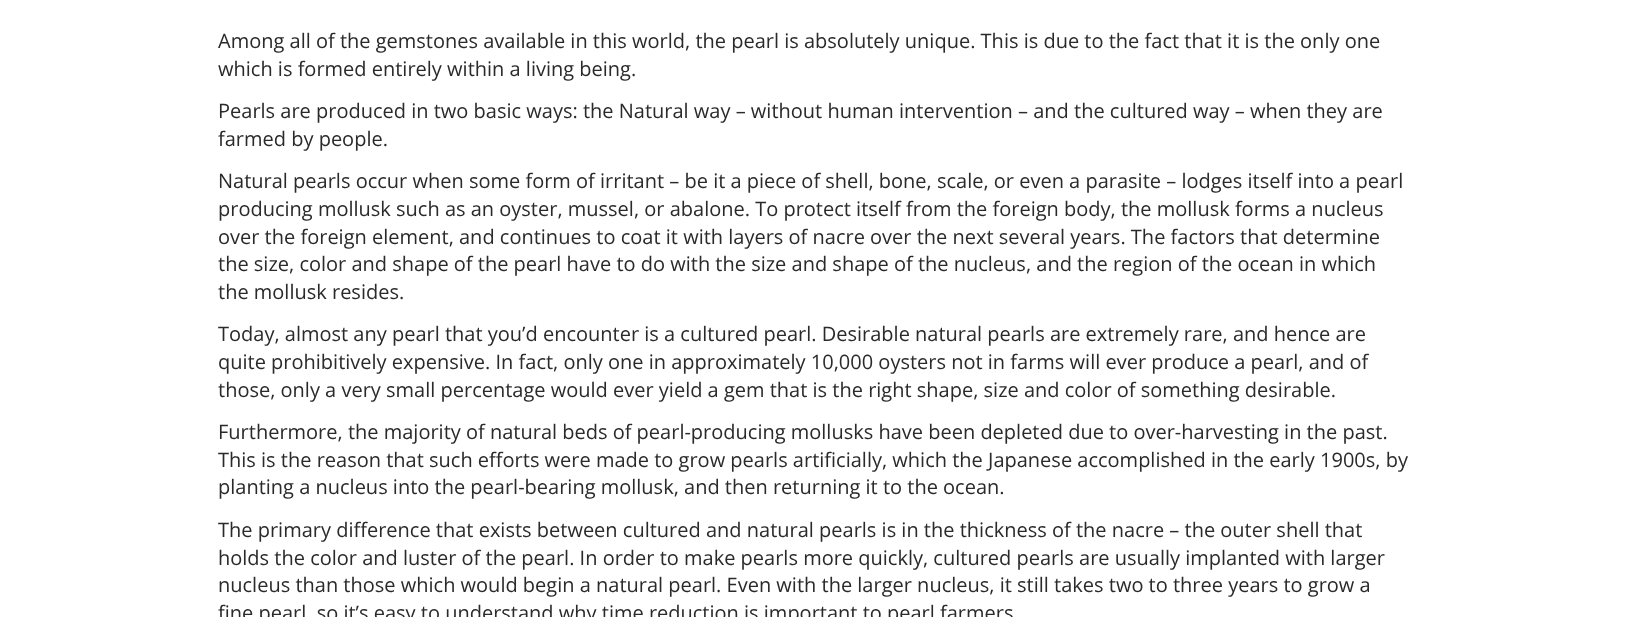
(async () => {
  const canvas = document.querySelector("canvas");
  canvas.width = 1625;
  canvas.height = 617;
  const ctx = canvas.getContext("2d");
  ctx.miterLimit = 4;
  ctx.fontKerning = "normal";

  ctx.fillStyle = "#ffffff";
  ctx.fillRect(0, 0, 1625, 617);
  ctx.font = "20px Open Sans";
  ctx.fillStyle = "#2b2a2a";
  for (const [text, x, y] of [
    ["Among all of the gemstones available in this world, the pearl is absolutely unique. This is due to the fact that it is the only one", 218, 48],
    ["which is formed entirely within a living being.", 218, 76],
    ["Pearls are produced in two basic ways: the Natural way – without human intervention – and the cultured way – when they are", 218, 118],
    ["farmed by people.", 218, 146],
    ["Natural pearls occur when some form of irritant – be it a piece of shell, bone, scale, or even a parasite – lodges itself into a pearl", 218, 188],
    ["producing mollusk such as an oyster, mussel, or abalone. To protect itself from the foreign body, the mollusk forms a nucleus", 218, 216],
    ["over the foreign element, and continues to coat it with layers of nacre over the next several years. The factors that determine", 218, 244],
    ["the size, color and shape of the pearl have to do with the size and shape of the nucleus, and the region of the ocean in which", 218, 271],
    ["the mollusk resides.", 218, 299],
    ["Today, almost any pearl that you’d encounter is a cultured pearl. Desirable natural pearls are extremely rare, and hence are", 218, 341],
    ["quite prohibitively expensive. In fact, only one in approximately 10,000 oysters not in farms will ever produce a pearl, and of", 218, 369],
    ["those, only a very small percentage would ever yield a gem that is the right shape, size and color of something desirable.", 218, 397],
    ["Furthermore, the majority of natural beds of pearl-producing mollusks have been depleted due to over-harvesting in the past.", 218, 439],
    ["This is the reason that such efforts were made to grow pearls artificially, which the Japanese accomplished in the early 1900s, by", 218, 467],
    ["planting a nucleus into the pearl-bearing mollusk, and then returning it to the ocean.", 218, 494],
    ["The primary difference that exists between cultured and natural pearls is in the thickness of the nacre – the outer shell that", 218, 537],
    ["holds the color and luster of the pearl. In order to make pearls more quickly, cultured pearls are usually implanted with larger", 218, 565],
    ["nucleus than those which would begin a natural pearl. Even with the larger nucleus, it still takes two to three years to grow a", 218, 592],
    ["fine pearl, so it’s easy to understand why time reduction is important to pearl farmers", 218, 620],
  ]) {
    ctx.fillText(text, x, y);
  }
})();
